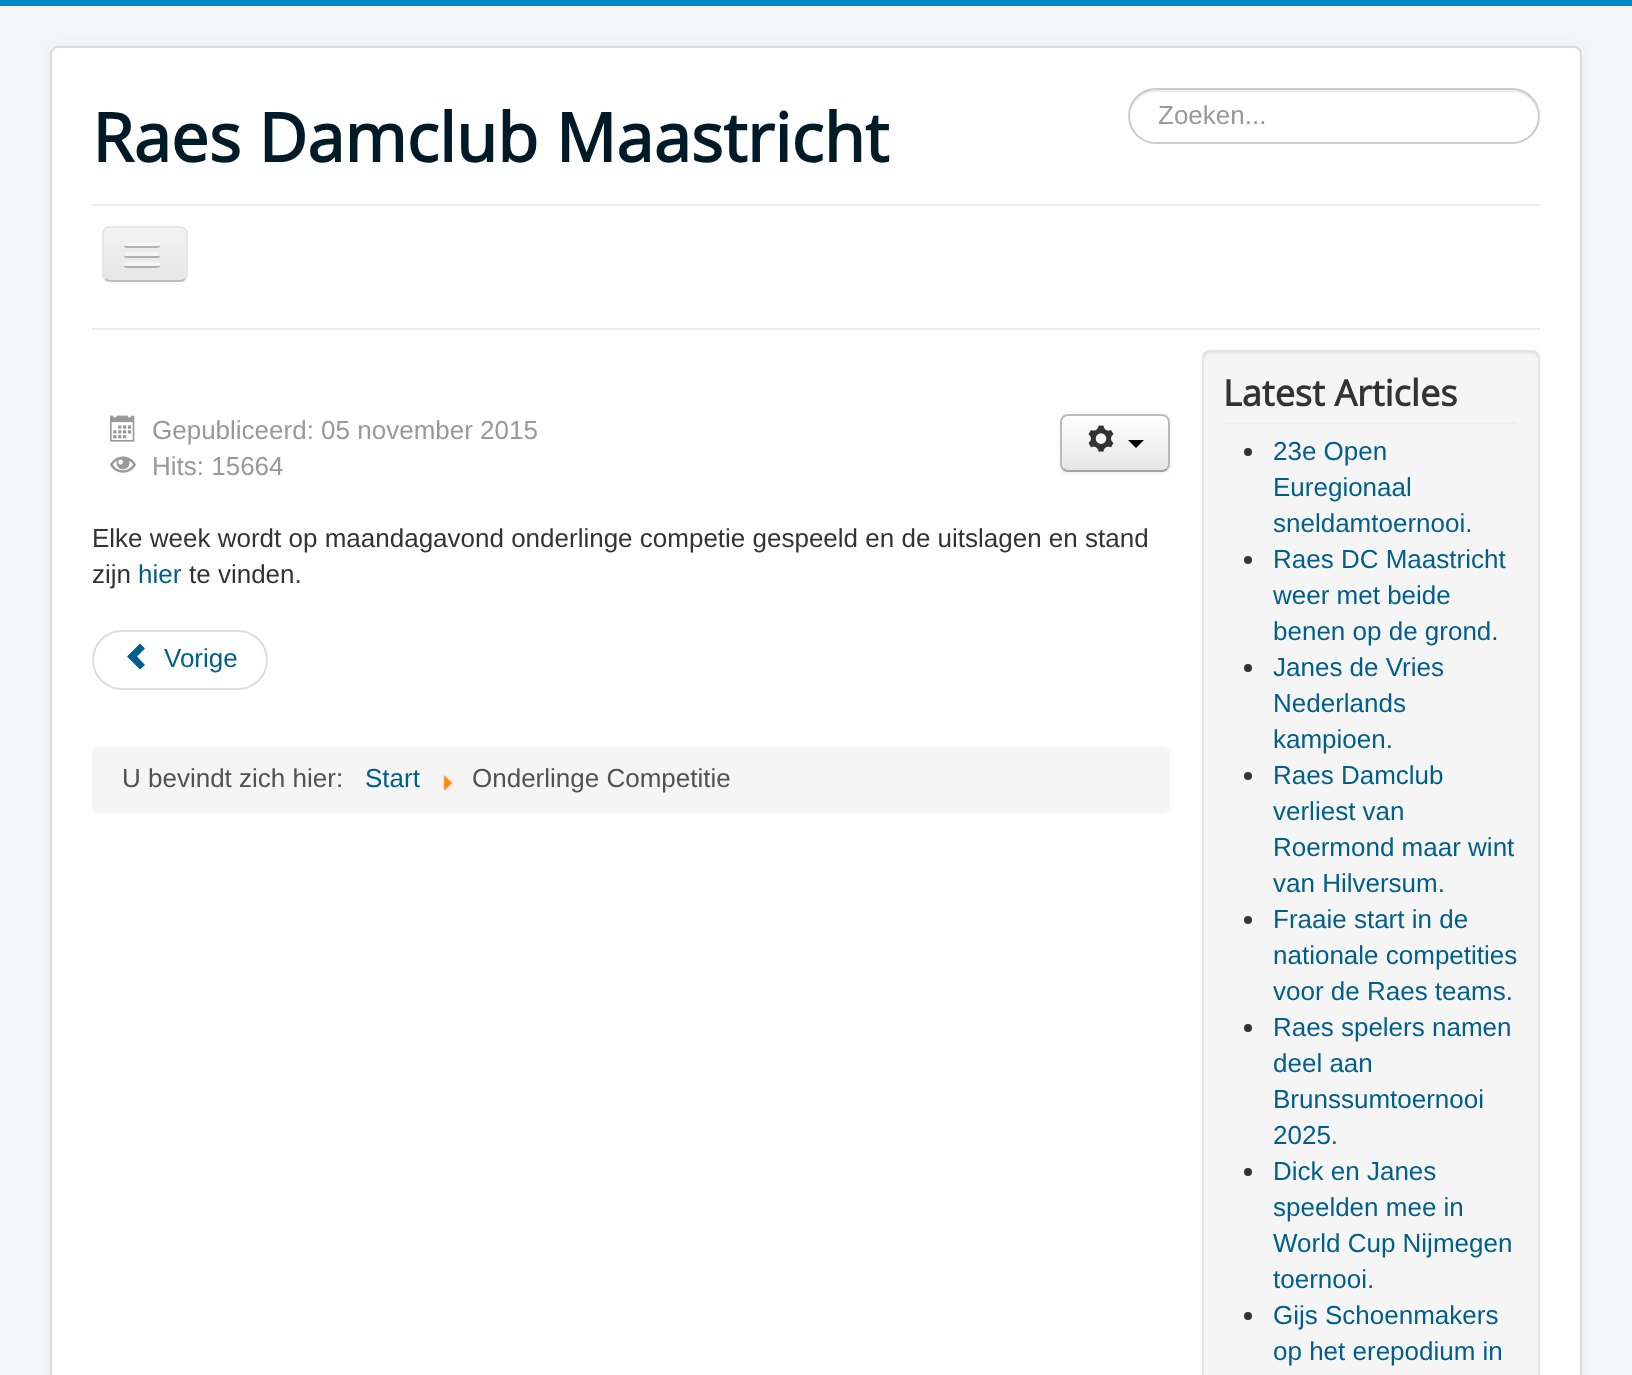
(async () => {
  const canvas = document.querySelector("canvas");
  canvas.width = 1632;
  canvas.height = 1375;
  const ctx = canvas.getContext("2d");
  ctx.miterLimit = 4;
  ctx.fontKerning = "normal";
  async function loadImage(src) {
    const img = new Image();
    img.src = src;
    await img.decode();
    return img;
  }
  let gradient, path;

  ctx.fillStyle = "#f4f6f7";
  ctx.fillRect(0, 0, 1632, 1375);
  ctx.fillStyle = "#0088cc";
  ctx.fillRect(0, 0, 1632, 6);
  ctx.fillStyle = "rgba(0, 0, 0, 0.05)";
  ctx.filter = "blur(6px)";
  ctx.beginPath();
  ctx.roundRect(50, 46, 1532, 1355, 8);
  ctx.fill();
  ctx.filter = "none";
  ctx.fillStyle = "#ffffff";
  ctx.beginPath();
  ctx.roundRect(50, 46, 1532, 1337, 8);
  ctx.fill();
  ctx.beginPath();
  ctx.roundRect(51, 47, 1530, 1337, 7);
  ctx.strokeStyle = "rgba(0, 0, 0, 0.15)";
  ctx.lineWidth = 2;
  ctx.stroke();
  ctx.fillStyle = "#ececec";
  path = new Path2D("M1156 92H1512C1526 92 1537 103 1538 117C1539 102 1527 90 1512 90H1156C1141 90 1129 102 1130 117C1131 103 1142 92 1156 92Z");
  ctx.fill(path);
  ctx.beginPath();
  ctx.roundRect(1129, 89, 410, 54, 27);
  ctx.strokeStyle = "#cccccc";
  ctx.stroke();
  ctx.fillRect(92, 204, 1448, 2);
  ctx.fillRect(92, 328, 1448, 2);
  ctx.save();
  ctx.beginPath();
  ctx.roundRect(102, 226, 86, 56, 8);
  ctx.clip();
  gradient = ctx.createLinearGradient(145, 228, 145, 280);
  gradient.addColorStop(0, "#f2f2f2");
  gradient.addColorStop(1, "#e6e6e6");
  ctx.fillStyle = gradient;
  ctx.fillRect(102, 228, 86, 52);
  ctx.restore();
  ctx.fillStyle = "#f3f3f3";
  path = new Path2D("M110 230H180C183 230 186 233 186 236C186 225 177 228 168 228H122C113 228 104 225 104 236C104 233 107 230 110 230Z");
  ctx.fill(path);
  path = new Path2D("M185 279C183.5 280.5 182 281 180 281H110C108 281 106.5 280.5 105 279");
  ctx.strokeStyle = "#bfbfbf";
  ctx.stroke(path);
  path = new Path2D("M105 279C103.5 277.5 103 276 103 274V234C103 232 103.5 230.5 105 229C106.5 227.5 108 227 110 227H180C182 227 183.5 227.5 185 229C186.5 230.5 187 232 187 234V274C187 276 186.5 277.5 185 279");
  ctx.strokeStyle = "#e6e6e6";
  ctx.stroke(path);
  ctx.fillStyle = "#b3b3b3";
  path = new Path2D("M124.5 245C122 249 131 248 131.5 248H152.5C153 248 162 249 159.5 245C159.5 245.5 158.5 246 158 246H126C125.5 246 124.5 245.5 124.5 245Z");
  ctx.fill(path);
  ctx.fillStyle = "#f5f5f5";
  ctx.beginPath();
  ctx.roundRect(124, 242, 36, 4, 2);
  ctx.fill();
  ctx.fillStyle = "#b0b0b0";
  path = new Path2D("M124.5 255C122 259 131 258 131.5 258H152.5C153 258 162 259 159.5 255C159.5 255.5 158.5 256 158 256H126C125.5 256 124.5 255.5 124.5 255Z");
  ctx.fill(path);
  ctx.fillStyle = "#f5f5f5";
  ctx.beginPath();
  ctx.roundRect(124, 252, 36, 4, 2);
  ctx.fill();
  ctx.fillStyle = "#afafaf";
  path = new Path2D("M124.5 265C122 269 131 268 131.5 268H152.5C153 268 162 269 159.5 265C159.5 265.5 158.5 266 158 266H126C125.5 266 124.5 265.5 124.5 265Z");
  ctx.fill(path);
  ctx.fillStyle = "#f5f5f5";
  ctx.beginPath();
  ctx.roundRect(124, 262, 36, 4, 2);
  ctx.fill();
  ctx.drawImage(await loadImage("img/1.png"), 110, 415, 25, 27);
  ctx.drawImage(await loadImage("img/2.png"), 110, 456, 26, 17);
  ctx.fillStyle = "rgba(0, 0, 0, 0.05)";
  ctx.filter = "blur(2px)";
  ctx.beginPath();
  ctx.roundRect(1060, 416, 110, 58, 8);
  ctx.fill();
  ctx.filter = "none";
  ctx.save();
  ctx.beginPath();
  ctx.roundRect(1060, 414, 110, 58, 8);
  ctx.clip();
  gradient = ctx.createLinearGradient(1115, 416, 1115, 470);
  gradient.addColorStop(0, "#ffffff");
  gradient.addColorStop(1, "#e6e6e6");
  ctx.fillStyle = gradient;
  ctx.fillRect(1060, 416, 110, 54);
  ctx.restore();
  path = new Path2D("M1167 469C1165.5 470.5 1164 471 1162 471H1068C1066 471 1064.5 470.5 1063 469");
  ctx.strokeStyle = "#a2a2a2";
  ctx.stroke(path);
  path = new Path2D("M1063 469C1061.5 467.5 1061 466 1061 464V422C1061 420 1061.5 418.5 1063 417C1064.5 415.5 1066 415 1068 415H1162C1164 415 1165.5 415.5 1167 417C1168.5 418.5 1169 420 1169 422V464C1169 466 1168.5 467.5 1167 469");
  ctx.strokeStyle = "#bbbbbb";
  ctx.stroke(path);
  ctx.drawImage(await loadImage("img/3.png"), 1088, 425, 26, 27);
  ctx.fillStyle = "#000000";
  path = new Path2D("M1128 440H1144L1136 448Z");
  ctx.fill(path);
  ctx.beginPath();
  ctx.roundRect(93, 631, 174, 58, 29);
  ctx.strokeStyle = "#dddddd";
  ctx.stroke();
  ctx.fillStyle = "#005e8d";
  path = new Path2D("M140 669.5L127 656.5L140 643.5L145 648.5L137 656.5L145 665Z");
  ctx.fill(path);
  ctx.fillStyle = "#f5f5f5";
  ctx.beginPath();
  ctx.roundRect(92, 746, 1078, 68, 8);
  ctx.fill();
  ctx.drawImage(await loadImage("img/4.png"), 443, 775, 10, 15);
  ctx.beginPath();
  ctx.roundRect(1202, 350, 338, 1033, 8);
  ctx.fill();
  ctx.fillStyle = "#e9e9e9";
  path = new Path2D("M1210 354H1532C1535 354 1538 357 1538 360V358C1538 355 1535 352 1532 352H1210C1207 352 1204 355 1204 358V360C1204 357 1207 354 1210 354Z");
  ctx.fill(path);
  ctx.beginPath();
  ctx.roundRect(1203, 351, 336, 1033, 7);
  ctx.strokeStyle = "#e3e3e3";
  ctx.stroke();
  ctx.fillStyle = "#eeeeee";
  ctx.fillRect(1224, 422, 294, 2);
  ctx.fillStyle = "#333333";
  ctx.beginPath();
  ctx.arc(1248, 452, 4, 0, Math.PI * 2);
  ctx.fill();
  ctx.beginPath();
  ctx.arc(1248, 560, 4, 0, Math.PI * 2);
  ctx.fill();
  ctx.beginPath();
  ctx.arc(1248, 668, 4, 0, Math.PI * 2);
  ctx.fill();
  ctx.beginPath();
  ctx.arc(1248, 776, 4, 0, Math.PI * 2);
  ctx.fill();
  ctx.beginPath();
  ctx.arc(1248, 920, 4, 0, Math.PI * 2);
  ctx.fill();
  ctx.beginPath();
  ctx.arc(1248, 1028, 4, 0, Math.PI * 2);
  ctx.fill();
  ctx.beginPath();
  ctx.arc(1248, 1172, 4, 0, Math.PI * 2);
  ctx.fill();
  ctx.beginPath();
  ctx.arc(1248, 1316, 4, 0, Math.PI * 2);
  ctx.fill();
  ctx.font = "bold 67.25px Open Sans";
  ctx.fillStyle = "#001a27";
  ctx.fillText("Raes Damclub Maastricht", 92, 162);
  ctx.font = "26px Liberation Sans";
  ctx.fillStyle = "#999999";
  for (const [text, x, y] of [
    ["Zoeken...", 1158, 124],
    ["Gepubliceerd: 05 november 2015", 152, 439],
    ["Hits: 15664", 152, 475],
  ]) {
    ctx.fillText(text, x, y);
  }
  ctx.fillStyle = "#333333";
  ctx.fillText("Elke week wordt op maandagavond onderlinge competie gespeeld en de uitslagen en stand", 92, 547);
  ctx.fillText("zijn", 92, 583);
  ctx.fillStyle = "#005e8d";
  ctx.fillText("hier", 138, 583);
  ctx.fillStyle = "#333333";
  ctx.fillText("te vinden.", 189, 583);
  ctx.fillStyle = "#005e8d";
  ctx.fillText("Vorige", 164, 667);
  ctx.fillStyle = "#515151";
  ctx.fillText("U bevindt zich hier:", 122, 787);
  ctx.fillStyle = "#005e8d";
  ctx.fillText("Start", 365, 787);
  ctx.fillStyle = "#515151";
  ctx.fillText("Onderlinge Competitie", 472, 787);
  ctx.font = "bold 36px Open Sans";
  ctx.fillStyle = "#333333";
  ctx.fillText("Latest Articles", 1223, 406);
  ctx.font = "26px Liberation Sans";
  ctx.fillStyle = "#005e8d";
  for (const [text, x, y] of [
    ["23e Open", 1273, 460],
    ["Euregionaal", 1273, 496],
    ["sneldamtoernooi.", 1273, 532],
    ["Raes DC Maastricht", 1273, 568],
    ["weer met beide", 1273, 604],
    ["benen op de grond.", 1273, 640],
    ["Janes de Vries", 1273, 676],
    ["Nederlands", 1273, 712],
    ["kampioen.", 1273, 748],
    ["Raes Damclub", 1273, 784],
    ["verliest van", 1273, 820],
    ["Roermond maar wint", 1273, 856],
    ["van Hilversum.", 1273, 892],
    ["Fraaie start in de", 1273, 928],
    ["nationale competities", 1273, 964],
    ["voor de Raes teams.", 1273, 1000],
    ["Raes spelers namen", 1273, 1036],
    ["deel aan", 1273, 1072],
    ["Brunssumtoernooi", 1273, 1108],
    ["2025.", 1273, 1144],
    ["Dick en Janes", 1273, 1180],
    ["speelden mee in", 1273, 1216],
    ["World Cup Nijmegen", 1273, 1252],
    ["toernooi.", 1273, 1288],
    ["Gijs Schoenmakers", 1273, 1324],
    ["op het erepodium in", 1273, 1360],
  ]) {
    ctx.fillText(text, x, y);
  }
})();
